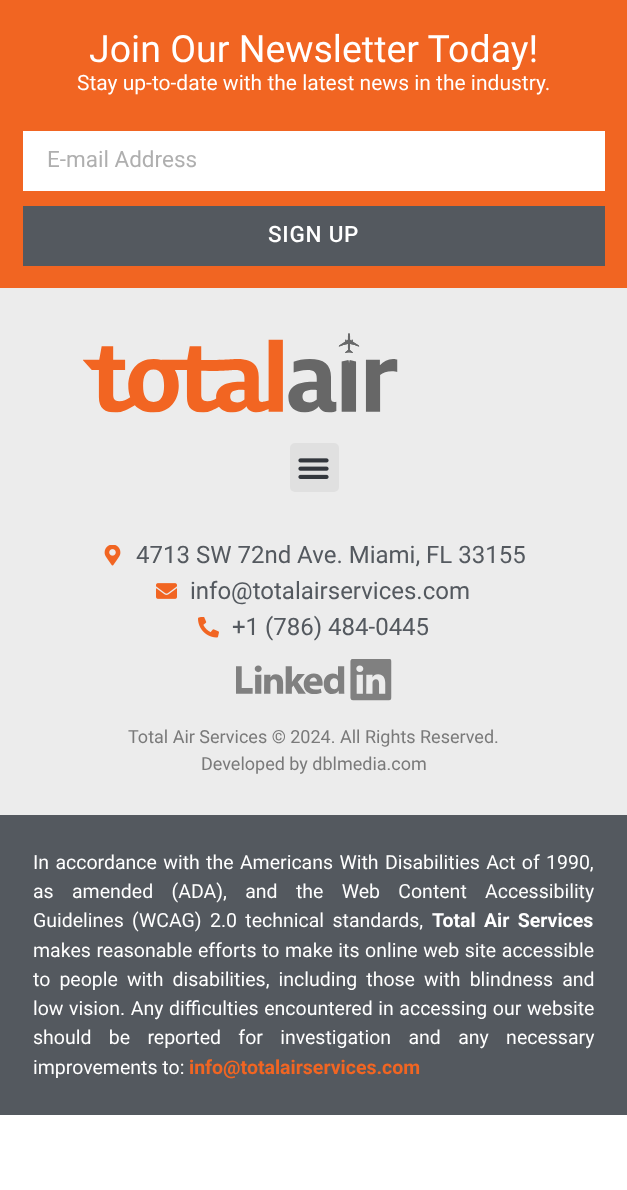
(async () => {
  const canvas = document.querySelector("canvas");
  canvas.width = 627;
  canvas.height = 1190;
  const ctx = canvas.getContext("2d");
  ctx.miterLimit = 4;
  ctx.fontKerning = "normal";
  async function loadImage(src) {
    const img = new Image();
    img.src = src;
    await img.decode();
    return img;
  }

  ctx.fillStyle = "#ffffff";
  ctx.fillRect(0, 0, 627, 1190);
  for (const [x, y, w, h, color] of [
    [0, 0, 627, 288, "#f16522"],
    [23, 131, 582, 60, "#ffffff"],
    [23, 206, 582, 60, "#54595f"],
    [0, 288, 627, 527, "#ececec"],
  ]) {
    ctx.fillStyle = color;
    ctx.fillRect(x, y, w, h);
  }
  ctx.drawImage(await loadImage("img/1.png"), 83, 333, 315, 80);
  ctx.fillStyle = "#e0e0e0";
  ctx.beginPath();
  ctx.roundRect(290, 443, 49, 49, 5);
  ctx.fill();
  ctx.drawImage(await loadImage("img/2.png"), 298, 458, 31, 21);
  ctx.drawImage(await loadImage("img/3.png"), 104, 545, 17, 21);
  ctx.drawImage(await loadImage("img/4.png"), 156, 583, 21, 16);
  ctx.drawImage(await loadImage("img/5.png"), 198, 617, 21, 21);
  ctx.drawImage(await loadImage("img/6.png"), 236, 659, 156, 42);
  ctx.fillStyle = "#54595f";
  ctx.fillRect(0, 815, 627, 300);
  ctx.font = "37.5px Roboto";
  ctx.fillStyle = "#ffffff";
  ctx.fillText("Join Our Newsletter Today!", 89, 62);
  ctx.font = "21px Roboto";
  ctx.fillText("Stay up-to-date with the latest news in the industry.", 77, 90);
  ctx.font = "22.5px Roboto";
  ctx.fillStyle = "#afafaf";
  ctx.fillText("E-mail Address", 47, 167);
  ctx.letterSpacing = "0.75px";
  ctx.font = "500 22.5px Roboto";
  ctx.fillStyle = "#ffffff";
  ctx.fillText("SIGN UP", 268, 242);
  ctx.letterSpacing = "0px";
  ctx.font = "24px Roboto";
  ctx.fillStyle = "#54595f";
  for (const [text, x, y] of [
    ["4713 SW 72nd Ave. Miami, FL 33155", 136, 563],
    ["info@totalairservices.com", 190, 599],
    ["+1 (786) 484-0445", 232, 635],
  ]) {
    ctx.fillText(text, x, y);
  }
  ctx.font = "18px Roboto";
  ctx.fillStyle = "#7a7a7a";
  ctx.fillText("Total Air Services © 2024. All Rights Reserved.", 128, 743);
  ctx.fillText("Developed by dblmedia.com", 201, 770);
  ctx.wordSpacing = "1.5px";
  ctx.font = "19.5px Roboto";
  ctx.fillStyle = "#ffffff";
  ctx.fillText("In accordance with the Americans With Disabilities Act of 1990,", 33, 869);
  ctx.wordSpacing = "13.5px";
  ctx.fillText("as amended (ADA), and the Web Content Accessibility", 33, 898);
  ctx.wordSpacing = "3.5px";
  ctx.fillText("Guidelines (WCAG) 2.0 technical standards,", 33, 927);
  ctx.font = "bold 19.5px Roboto";
  ctx.fillText("Total Air Services", 432, 927);
  ctx.wordSpacing = "0.75px";
  ctx.font = "19.5px Roboto";
  ctx.fillText("makes reasonable efforts to make its online web site accessible", 33, 957);
  ctx.wordSpacing = "4.25px";
  ctx.fillText("to people with disabilities, including those with blindness and", 33, 986);
  ctx.wordSpacing = "0.75px";
  ctx.fillText("low vision. Any difficulties encountered in accessing our website", 33, 1015);
  ctx.wordSpacing = "12.5px";
  ctx.fillText("should be reported for investigation and any necessary", 33, 1044);
  ctx.wordSpacing = "0px";
  ctx.fillText("improvements to:", 33, 1074);
  ctx.font = "bold 19.5px Roboto";
  ctx.fillStyle = "#f16522";
  ctx.fillText("info@totalairservices.com", 189, 1074);
})();
